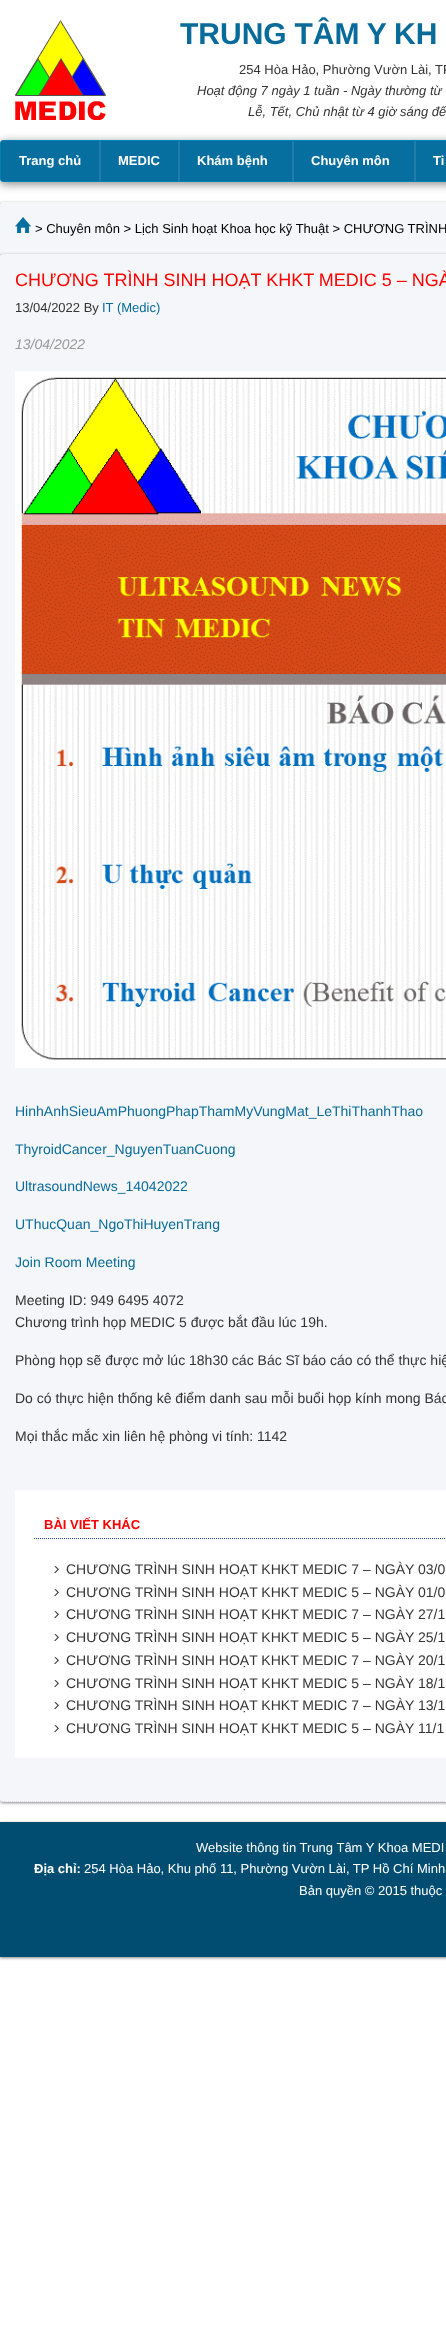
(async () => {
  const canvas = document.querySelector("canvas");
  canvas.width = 446;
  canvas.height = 2339;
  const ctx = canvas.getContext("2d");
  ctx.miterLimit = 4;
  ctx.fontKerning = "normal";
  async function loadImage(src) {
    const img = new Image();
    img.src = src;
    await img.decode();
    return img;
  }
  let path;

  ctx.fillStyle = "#ffffff";
  ctx.fillRect(0, 0, 446, 2339);
  ctx.drawImage(await loadImage("img/1.png"), 15, 20, 91, 100);
  ctx.fillStyle = "#888888";
  ctx.filter = "blur(5px)";
  ctx.beginPath();
  ctx.roundRect(0, 142, 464, 42, 3);
  ctx.fill();
  ctx.filter = "none";
  ctx.beginPath();
  ctx.roundRect(0.5, 140.5, 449, 41, 2.5);
  ctx.strokeStyle = "#0182b5";
  ctx.stroke();
  for (const [x, y, w, h, color] of [
    [1, 141, 445, 40, "#076f9f"],
    [99, 141, 2, 40, "#207da9"],
    [178, 141, 2, 40, "#207da9"],
    [292, 141, 2, 40, "#207da9"],
    [414, 141, 2, 40, "#207da9"],
  ]) {
    ctx.fillStyle = color;
    ctx.fillRect(x, y, w, h);
  }
  ctx.fillStyle = "#888888";
  ctx.filter = "blur(1.5px)";
  ctx.beginPath();
  ctx.roundRect(0, 203, 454, 52, 3);
  ctx.fill();
  ctx.filter = "none";
  ctx.fillStyle = "#f4f6f9";
  path = new Path2D("M3 202H446C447.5 202 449 203.5 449 205V254H0V205C0 203.5 1.5 202 3 202Z");
  ctx.fill(path);
  ctx.drawImage(await loadImage("img/2.png"), 15, 217, 16, 16);
  ctx.fillStyle = "#888888";
  ctx.filter = "blur(1.5px)";
  ctx.beginPath();
  ctx.roundRect(0, 255, 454, 1548, 3);
  ctx.fill();
  ctx.filter = "none";
  ctx.fillStyle = "#f4f6f9";
  ctx.beginPath();
  ctx.roundRect(0, 254, 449, 1548, 3);
  ctx.fill();
  path = new Path2D("M0 1801.5H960");
  ctx.strokeStyle = "#dddddd";
  ctx.setLineDash([1, 1]);
  ctx.stroke(path);
  ctx.drawImage(await loadImage("img/3.png"), 15, 371, 431, 697);
  ctx.fillStyle = "#ffffff";
  ctx.fillRect(15, 1490, 431, 268);
  path = new Path2D("M34 1538.5H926");
  ctx.strokeStyle = "#264796";
  ctx.stroke(path);
  ctx.drawImage(await loadImage("img/4.png"), 54, 1566, 5, 7);
  ctx.drawImage(await loadImage("img/4.png"), 54, 1589, 5, 7);
  ctx.drawImage(await loadImage("img/4.png"), 54, 1611, 5, 7);
  ctx.drawImage(await loadImage("img/4.png"), 54, 1634, 5, 7);
  ctx.drawImage(await loadImage("img/4.png"), 54, 1657, 5, 7);
  ctx.drawImage(await loadImage("img/4.png"), 54, 1680, 5, 7);
  ctx.drawImage(await loadImage("img/4.png"), 54, 1702, 5, 7);
  ctx.drawImage(await loadImage("img/4.png"), 54, 1725, 5, 7);
  ctx.fillStyle = "#888888";
  ctx.filter = "blur(1.5px)";
  ctx.beginPath();
  ctx.rect(0, 1823, 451, 135);
  ctx.fill();
  ctx.filter = "none";
  ctx.fillStyle = "#004d71";
  ctx.fillRect(0, 1822, 446, 135);
  ctx.wordSpacing = "-0.5px";
  ctx.font = "bold 30px Liberation Sans";
  ctx.fillStyle = "#096b9a";
  ctx.fillText("TRUNG TÂM Y KH", 180, 44);
  ctx.wordSpacing = "0px";
  ctx.font = "13px Liberation Sans";
  ctx.fillStyle = "#333333";
  ctx.fillText("254 Hòa Hảo, Phường Vườn Lài, TP", 239, 74);
  ctx.font = "italic 13px Liberation Sans";
  ctx.fillText("Hoạt động 7 ngày 1 tuần - Ngày thường từ", 197, 95);
  ctx.fillText("Lễ, Tết, Chủ nhật từ 4 giờ sáng đế", 248, 116);
  ctx.font = "bold 13px Liberation Sans";
  ctx.fillStyle = "#ffffff";
  for (const [text, x, y] of [
    ["Trang chủ", 19, 165],
    ["MEDIC", 118, 165],
    ["Khám bệnh", 197, 165],
    ["Chuyên môn", 311, 165],
    ["Ti", 433, 165],
  ]) {
    ctx.fillText(text, x, y);
  }
  ctx.font = "13px Liberation Sans";
  ctx.fillStyle = "#000000";
  ctx.fillText("> Chuyên môn > Lịch Sinh hoạt Khoa học kỹ Thuật > CHƯƠNG TRÌNH", 35, 233);
  ctx.font = "18px Liberation Sans";
  ctx.fillStyle = "#ff0000";
  ctx.fillText("CHƯƠNG TRÌNH SINH HOẠT KHKT MEDIC 5 – NGÀ", 15, 286);
  ctx.font = "13px Liberation Sans";
  ctx.fillStyle = "#333333";
  ctx.fillText("13/04/2022 By", 15, 312);
  ctx.fillStyle = "#096b9a";
  ctx.fillText("IT (Medic)", 102, 312);
  ctx.font = "italic 14px Liberation Sans";
  ctx.fillStyle = "#999999";
  ctx.fillText("13/04/2022", 15, 349);
  ctx.font = "14px Liberation Sans";
  ctx.fillStyle = "#096b9a";
  for (const [text, x, y] of [
    ["HinhAnhSieuAmPhuongPhapThamMyVungMat_LeThiThanhThao", 15, 1116],
    ["ThyroidCancer_NguyenTuanCuong", 15, 1154],
    ["UltrasoundNews_14042022", 15, 1191],
    ["UThucQuan_NgoThiHuyenTrang", 15, 1229],
    ["Join Room Meeting", 15, 1267],
  ]) {
    ctx.fillText(text, x, y);
  }
  ctx.fillStyle = "#333333";
  for (const [text, x, y] of [
    ["Meeting ID: 949 6495 4072", 15, 1305],
    ["Chương trình họp MEDIC 5 được bắt đầu lúc 19h.", 15, 1327],
    ["Phòng họp sẽ được mở lúc 18h30 các Bác Sĩ báo cáo có thể thực hiệ", 15, 1365],
    ["Do có thực hiện thống kê điểm danh sau mỗi buổi họp kính mong Bác", 15, 1403],
    ["Mọi thắc mắc xin liên hệ phòng vi tính: 1142", 15, 1441],
  ]) {
    ctx.fillText(text, x, y);
  }
  ctx.font = "bold 13px Liberation Sans";
  ctx.fillStyle = "#ff0000";
  ctx.fillText("BÀI VIẾT KHÁC", 44, 1529);
  ctx.font = "14px Liberation Sans";
  ctx.fillStyle = "#333333";
  for (const [text, x, y] of [
    ["CHƯƠNG TRÌNH SINH HOẠT KHKT MEDIC 7 – NGÀY 03/0", 66, 1574],
    ["CHƯƠNG TRÌNH SINH HOẠT KHKT MEDIC 5 – NGÀY 01/0", 66, 1597],
    ["CHƯƠNG TRÌNH SINH HOẠT KHKT MEDIC 7 – NGÀY 27/1", 66, 1619],
    ["CHƯƠNG TRÌNH SINH HOẠT KHKT MEDIC 5 – NGÀY 25/1", 66, 1642],
    ["CHƯƠNG TRÌNH SINH HOẠT KHKT MEDIC 7 – NGÀY 20/1", 66, 1665],
    ["CHƯƠNG TRÌNH SINH HOẠT KHKT MEDIC 5 – NGÀY 18/1", 66, 1688],
    ["CHƯƠNG TRÌNH SINH HOẠT KHKT MEDIC 7 – NGÀY 13/1", 66, 1710],
    ["CHƯƠNG TRÌNH SINH HOẠT KHKT MEDIC 5 – NGÀY 11/1", 66, 1733],
  ]) {
    ctx.fillText(text, x, y);
  }
  ctx.font = "13px Liberation Sans";
  ctx.fillStyle = "#ffffff";
  ctx.fillText("Website thông tin Trung Tâm Y Khoa MEDI", 196, 1852);
  ctx.font = "bold 13px Liberation Sans";
  ctx.fillText("Địa chỉ:", 34, 1873);
  ctx.font = "13px Liberation Sans";
  ctx.fillText("254 Hòa Hảo, Khu phố 11, Phường Vườn Lài, TP Hồ Chí Minh", 84, 1873);
  ctx.fillText("Bản quyền © 2015 thuộc", 299, 1895);
})();
